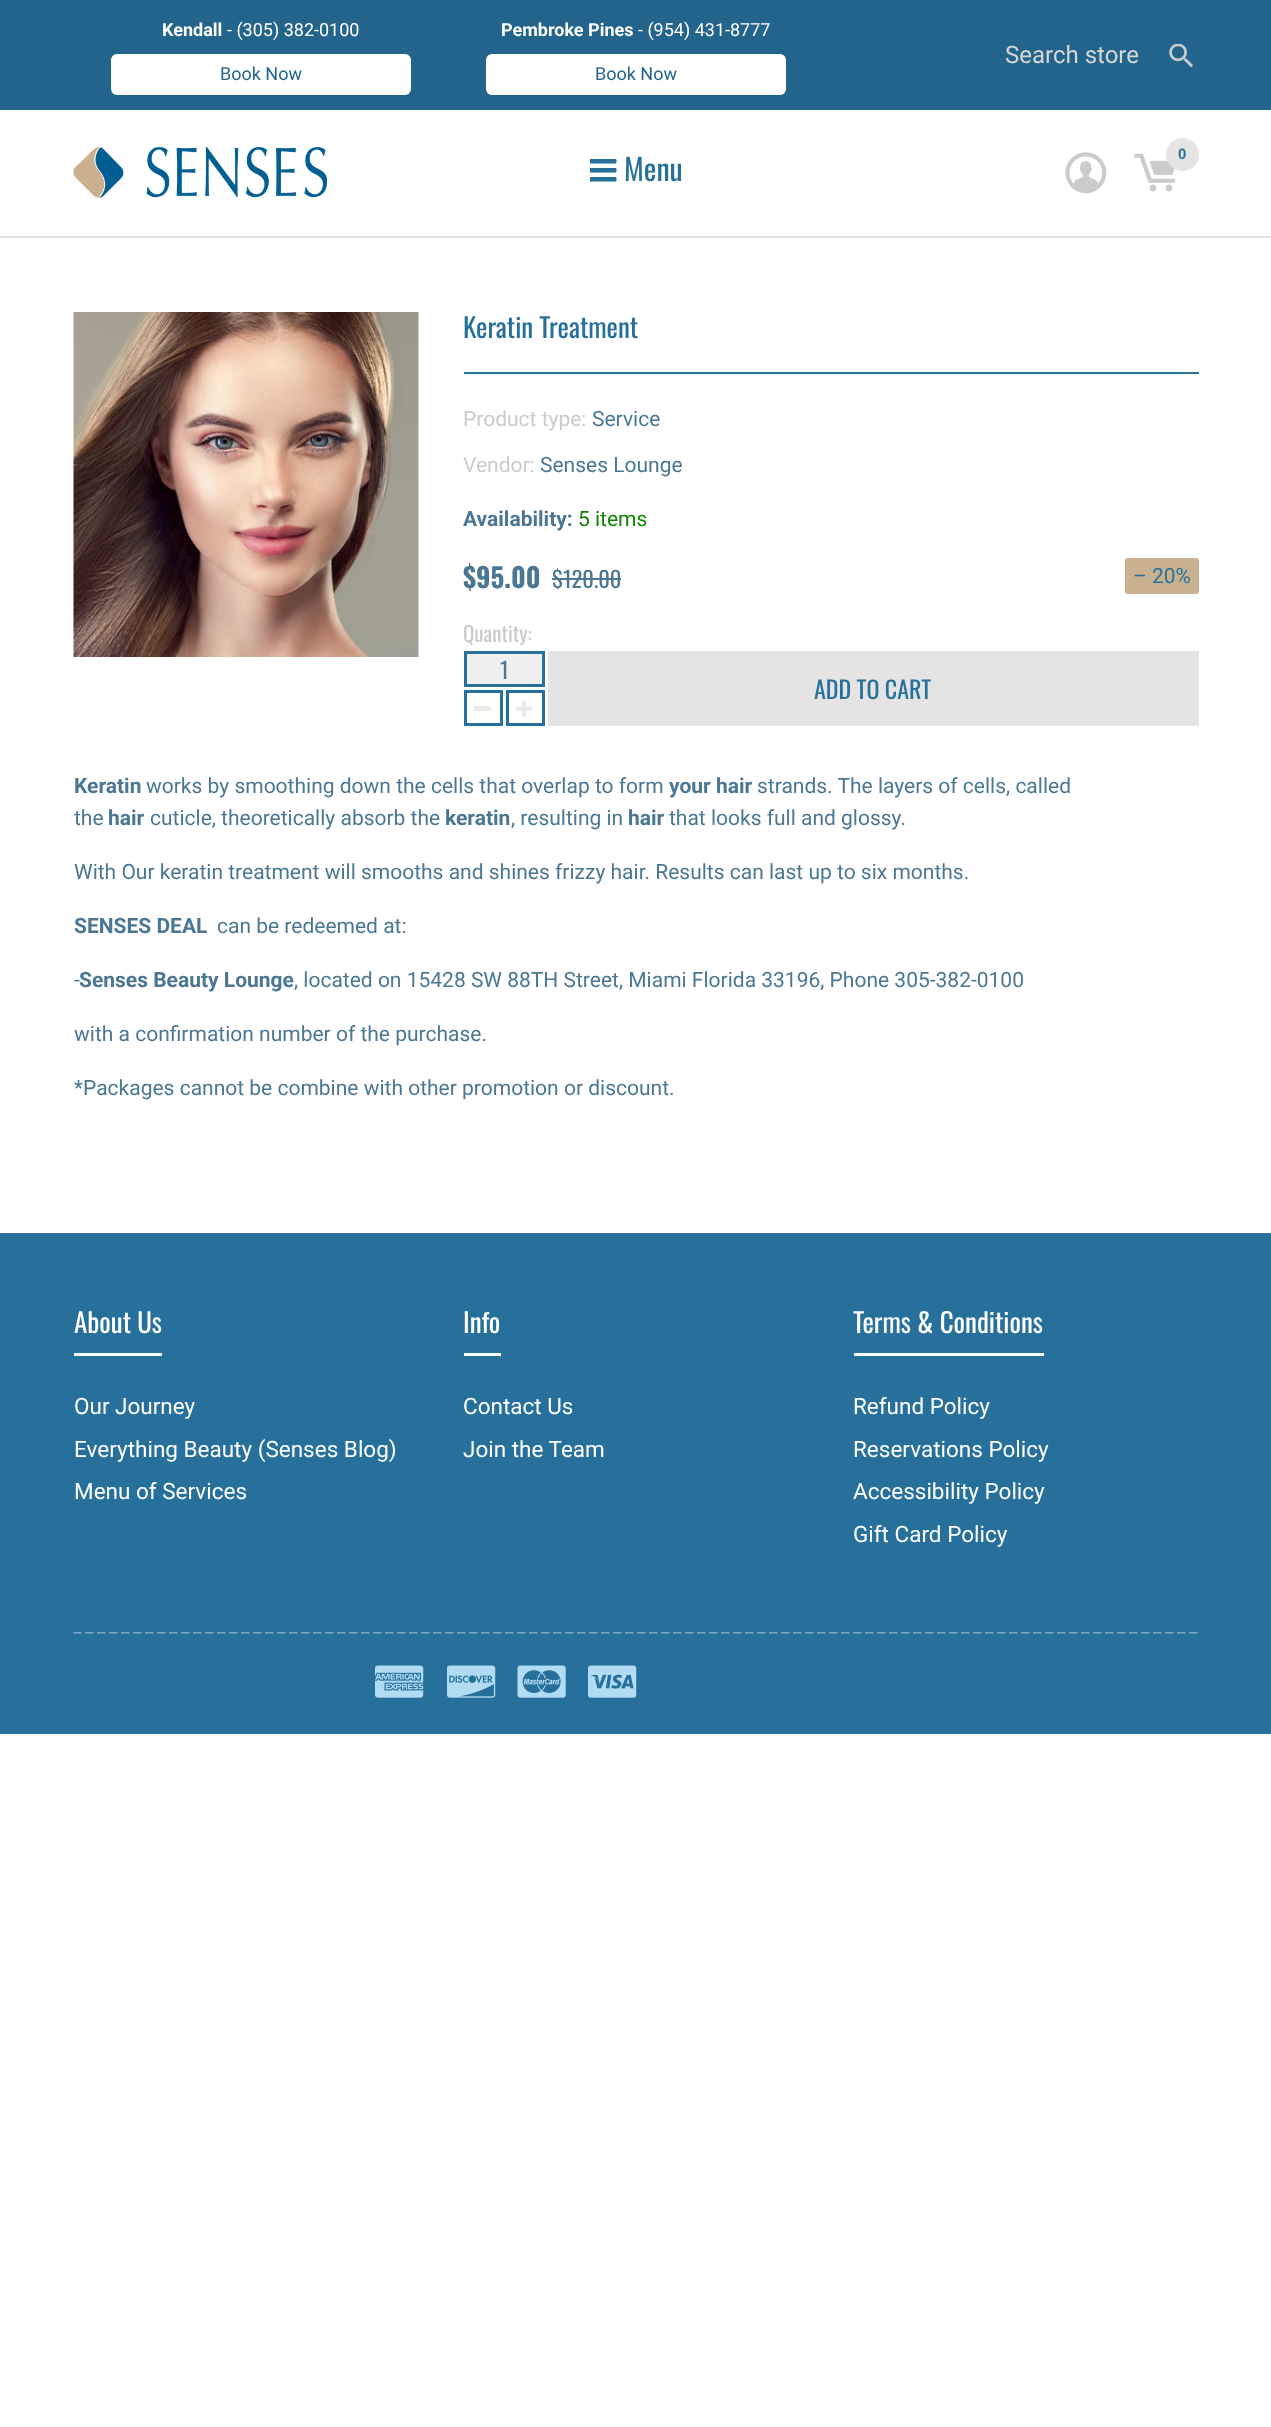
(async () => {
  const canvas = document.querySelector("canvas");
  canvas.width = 1271;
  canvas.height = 2427;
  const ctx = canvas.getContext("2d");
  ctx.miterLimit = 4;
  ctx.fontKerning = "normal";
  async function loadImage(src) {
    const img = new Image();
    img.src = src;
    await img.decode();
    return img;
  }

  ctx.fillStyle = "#ffffff";
  ctx.fillRect(0, 0, 1271, 2427);
  ctx.fillStyle = "#e0e0e0";
  ctx.fillRect(0, 236, 1271, 2);
  ctx.fillStyle = "#22648b";
  ctx.fillRect(0, 0, 1271, 110);
  ctx.fillStyle = "#ffffff";
  ctx.beginPath();
  ctx.roundRect(111, 54, 300, 41, 6);
  ctx.fill();
  ctx.beginPath();
  ctx.roundRect(486, 54, 300, 41, 6);
  ctx.fill();
  ctx.drawImage(await loadImage("img/1.png"), 1169, 44, 24, 24);
  ctx.drawImage(await loadImage("img/2.png"), 73, 147, 254, 51);
  ctx.drawImage(await loadImage("img/3.png"), 1065, 152, 42, 42);
  ctx.drawImage(await loadImage("img/4.png"), 1134, 153, 42, 39);
  ctx.fillStyle = "#e4e4e4";
  ctx.beginPath();
  ctx.arc(1182.5, 154.5, 16.5, 0, Math.PI * 2);
  ctx.fill();
  ctx.drawImage(await loadImage("img/5.png"), 590, 159, 27, 23);
  ctx.drawImage(await loadImage("img/6.png"), 73, 312, 346, 345);
  ctx.fillStyle = "#26709b";
  ctx.fillRect(464, 372, 735, 2);
  ctx.fillStyle = "#4b7794";
  ctx.fillRect(552, 578, 69, 2);
  ctx.fillStyle = "#c9b190";
  ctx.beginPath();
  ctx.roundRect(1125, 558, 74, 36, 3);
  ctx.fill();
  ctx.fillStyle = "#efefef";
  ctx.beginPath();
  ctx.rect(465.5, 652.5, 78, 33);
  ctx.fill();
  ctx.strokeStyle = "#26709b";
  ctx.lineWidth = 3;
  ctx.stroke();
  ctx.strokeRect(465.5, 691.5, 36, 33);
  ctx.fillStyle = "#eaeaea";
  ctx.fillRect(474, 706, 17, 5);
  ctx.strokeRect(507.5, 691.5, 36, 33);
  ctx.drawImage(await loadImage("img/7.png"), 516, 700, 17, 17);
  for (const [x, y, w, h, color] of [
    [548, 651, 651, 75, "#e4e4e4"],
    [0, 1233, 1271, 501, "#26709b"],
    [74, 1353, 88, 3, "#ffffff"],
    [464, 1353, 37, 3, "#ffffff"],
    [854, 1353, 190, 3, "#ffffff"],
  ]) {
    ctx.fillStyle = color;
    ctx.fillRect(x, y, w, h);
  }
  ctx.drawImage(await loadImage("img/8.png"), 73, 1632, 1125, 2);
  ctx.drawImage(await loadImage("img/9.png"), 375, 1665, 49, 33);
  ctx.drawImage(await loadImage("img/10.png"), 447, 1665, 49, 33);
  ctx.drawImage(await loadImage("img/11.png"), 517, 1665, 49, 33);
  ctx.drawImage(await loadImage("img/12.png"), 588, 1665, 49, 33);
  ctx.font = "bold 18px Roboto";
  ctx.fillText("Kendall", 162, 36);
  ctx.font = "18px Roboto";
  ctx.fillText("- (305) 382-0100", 227, 36);
  ctx.fillStyle = "#22648b";
  ctx.fillText("Book Now", 220, 80);
  ctx.font = "bold 18px Roboto";
  ctx.fillStyle = "#ffffff";
  ctx.fillText("Pembroke Pines", 501, 36);
  ctx.font = "18px Roboto";
  ctx.fillText("- (954) 431-8777", 638, 36);
  ctx.fillStyle = "#22648b";
  ctx.fillText("Book Now", 595, 80);
  ctx.font = "24px Roboto";
  ctx.fillStyle = "#d6d6d6";
  ctx.fillText("Search store", 1005, 63);
  ctx.font = "bold 15px Liberation Sans";
  ctx.fillStyle = "#26709b";
  ctx.fillText("0", 1178, 159);
  ctx.font = "30px Oswald";
  ctx.fillText("Menu", 624, 181);
  ctx.font = "27px Oswald";
  ctx.fillText("Keratin Treatment", 463, 338);
  ctx.font = "21px Roboto";
  ctx.fillStyle = "#cbcbcb";
  ctx.fillText("Product type:", 463, 426);
  ctx.fillStyle = "#4b7794";
  ctx.fillText("Service", 592, 426);
  ctx.fillStyle = "#cbcbcb";
  ctx.fillText("Vendor:", 463, 472);
  ctx.fillStyle = "#4b7794";
  ctx.fillText("Senses Lounge", 540, 472);
  ctx.font = "bold 21px Roboto";
  ctx.fillText("Availability:", 463, 526);
  ctx.font = "21px Roboto";
  ctx.fillStyle = "#118502";
  ctx.fillText("5 items", 578, 526);
  ctx.font = "bold 27px Oswald";
  ctx.fillStyle = "#4b7794";
  ctx.fillText("$95.00", 463, 588);
  ctx.font = "22.5px Oswald";
  ctx.fillText("$120.00", 552, 588);
  ctx.font = "21px Roboto";
  ctx.fillStyle = "#26709b";
  ctx.fillText("– 20%", 1133, 583);
  ctx.font = "21px Oswald";
  ctx.fillStyle = "#cbcbcb";
  ctx.fillText("Quantity:", 463, 642);
  ctx.font = "22.5px Oswald";
  ctx.fillStyle = "#4b7794";
  ctx.fillText("1", 500, 679);
  ctx.font = "24px Oswald";
  ctx.fillStyle = "#26709b";
  ctx.fillText("ADD TO CART", 814, 699);
  ctx.font = "bold 21px Roboto";
  ctx.fillStyle = "#4b7794";
  ctx.fillText("Keratin", 74, 793);
  ctx.font = "21px Roboto";
  ctx.fillText("works by smoothing down the cells that overlap to form", 146, 793);
  ctx.font = "bold 21px Roboto";
  ctx.fillText("your hair", 669, 793);
  ctx.font = "21px Roboto";
  ctx.fillText("strands. The layers of cells, called", 757, 793);
  ctx.fillText("the", 74, 825);
  ctx.font = "bold 21px Roboto";
  ctx.fillText("hair", 108, 825);
  ctx.font = "21px Roboto";
  ctx.fillText("cuticle, theoretically absorb the", 150, 825);
  ctx.font = "bold 21px Roboto";
  ctx.fillText("keratin", 445, 825);
  ctx.font = "21px Roboto";
  ctx.fillText(", resulting in", 511, 825);
  ctx.font = "bold 21px Roboto";
  ctx.fillText("hair", 628, 825);
  ctx.font = "21px Roboto";
  ctx.fillText("that looks full and glossy.", 669, 825);
  ctx.fillText("With Our keratin treatment will smooths and shines frizzy hair. Results can last up to six months.", 74, 879);
  ctx.font = "bold 21px Roboto";
  ctx.fillText("SENSES DEAL", 74, 933);
  ctx.font = "21px Roboto";
  ctx.fillText("can be redeemed at:", 217, 933);
  ctx.fillText("-", 74, 987);
  ctx.font = "bold 21px Roboto";
  ctx.fillText("Senses Beauty Lounge", 79, 987);
  ctx.font = "21px Roboto";
  for (const [text, x, y] of [
    [", located on 15428 SW 88TH Street, Miami Florida 33196, Phone 305-382-0100", 294, 987],
    ["with a confirmation number of the purchase.", 74, 1041],
    ["*Packages cannot be combine with other promotion or discount.", 74, 1095],
  ]) {
    ctx.fillText(text, x, y);
  }
  ctx.font = "27px Oswald";
  ctx.fillStyle = "#ffffff";
  ctx.fillText("About Us", 74, 1333);
  ctx.font = "22.5px Roboto";
  for (const [text, x, y] of [
    ["Our Journey", 74, 1414],
    ["Everything Beauty (Senses Blog)", 74, 1457],
    ["Menu of Services", 74, 1499],
  ]) {
    ctx.fillText(text, x, y);
  }
  ctx.font = "27px Oswald";
  ctx.fillText("Info", 463, 1333);
  ctx.font = "22.5px Roboto";
  ctx.fillText("Contact Us", 463, 1414);
  ctx.fillText("Join the Team", 463, 1457);
  ctx.font = "27px Oswald";
  ctx.fillText("Terms & Conditions", 853, 1333);
  ctx.font = "22.5px Roboto";
  for (const [text, x, y] of [
    ["Refund Policy", 853, 1414],
    ["Reservations Policy", 853, 1457],
    ["Accessibility Policy", 853, 1499],
    ["Gift Card Policy", 853, 1542],
  ]) {
    ctx.fillText(text, x, y);
  }
})();
